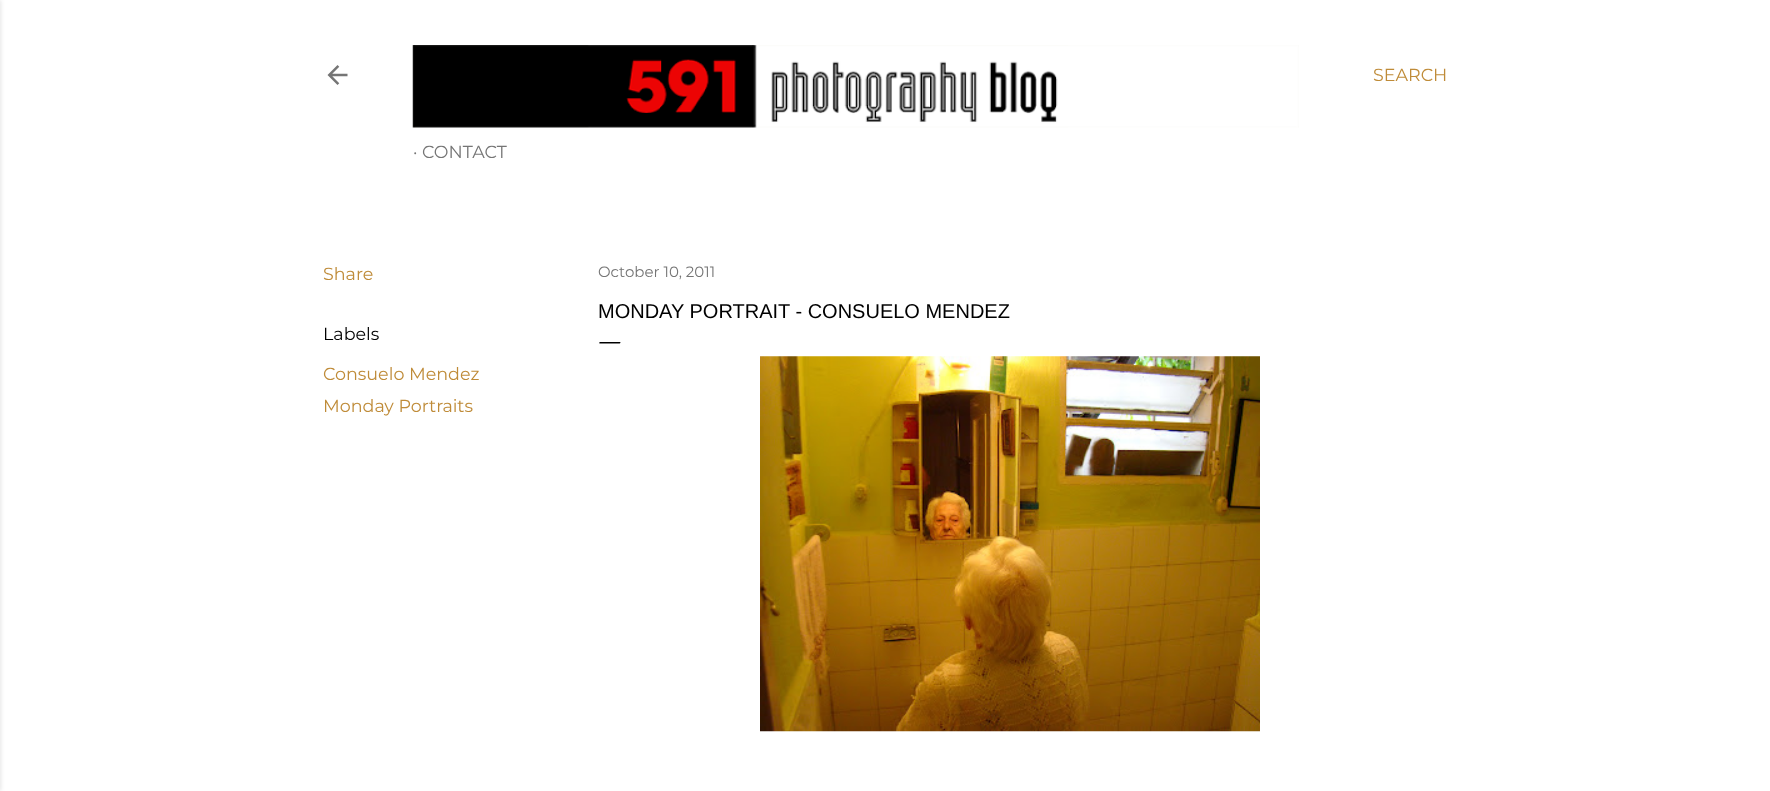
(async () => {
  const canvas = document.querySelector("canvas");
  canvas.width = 1770;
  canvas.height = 791;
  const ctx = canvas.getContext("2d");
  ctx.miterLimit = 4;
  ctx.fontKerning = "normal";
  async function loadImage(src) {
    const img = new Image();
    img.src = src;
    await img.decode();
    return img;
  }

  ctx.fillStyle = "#ffffff";
  ctx.fillRect(0, 0, 1770, 791);
  ctx.fillStyle = "rgba(0, 0, 0, 0.1)";
  ctx.filter = "blur(2px)";
  ctx.beginPath();
  ctx.rect(-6, 0, 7, 791);
  ctx.fill();
  ctx.filter = "none";
  ctx.drawImage(await loadImage("img/1.png"), 327, 65, 21, 20);
  ctx.drawImage(await loadImage("img/2.png"), 412, 45, 887, 83);
  ctx.drawImage(await loadImage("img/3.png"), 760, 356, 500, 376);
  ctx.font = "17.5px Montserrat";
  ctx.fillStyle = "#bf8b38";
  ctx.fillText("SEARCH", 1373, 81);
  ctx.fillStyle = "#757575";
  ctx.fillText("· CONTACT", 413, 158);
  ctx.fillStyle = "#bf8b38";
  ctx.fillText("Share", 323, 280);
  ctx.fillStyle = "#000000";
  ctx.fillText("Labels", 323, 340);
  ctx.fillStyle = "#bf8b38";
  ctx.fillText("Consuelo Mendez", 323, 380);
  ctx.fillText("Monday Portraits", 323, 412);
  ctx.font = "15px Montserrat";
  ctx.fillStyle = "#757575";
  ctx.fillText("October 10, 2011", 598, 277);
  ctx.font = "20px Liberation Sans";
  ctx.fillStyle = "#000000";
  ctx.fillText("MONDAY PORTRAIT - CONSUELO MENDEZ", 598, 318);
  ctx.font = "25px EB Garamond";
  ctx.fillText("—", 598, 348);
})();
